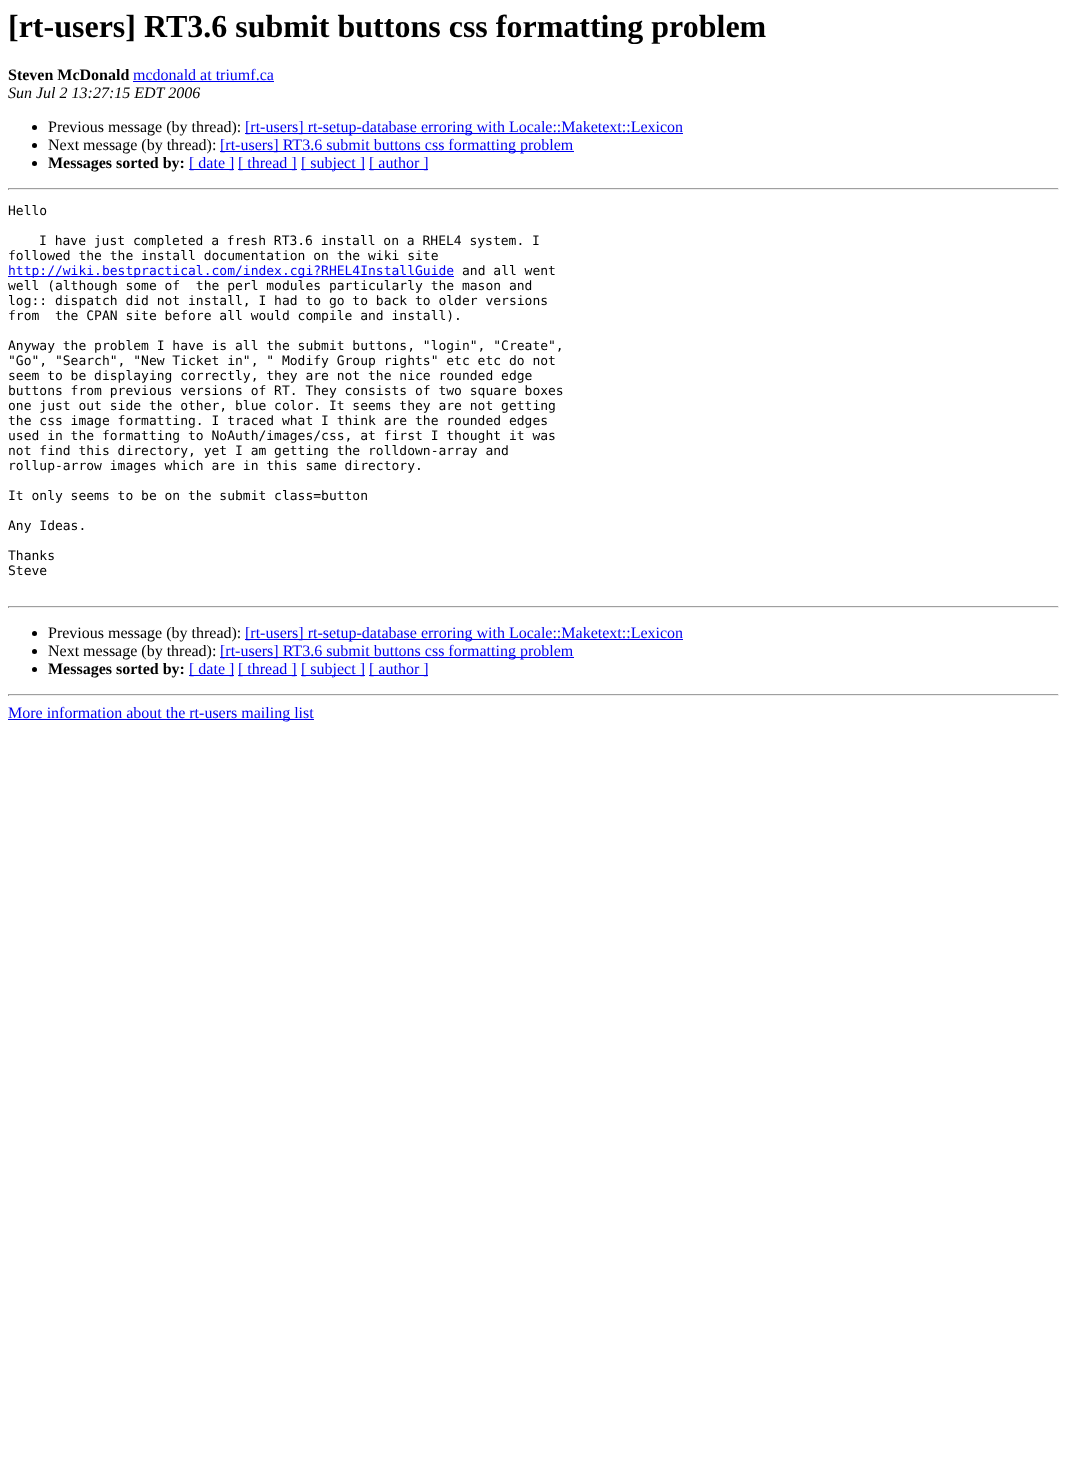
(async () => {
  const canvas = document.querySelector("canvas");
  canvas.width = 1067;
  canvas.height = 1477;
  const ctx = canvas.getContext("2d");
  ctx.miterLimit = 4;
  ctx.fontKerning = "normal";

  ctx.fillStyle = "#ffffff";
  ctx.fillRect(0, 0, 1067, 1477);
  ctx.fillStyle = "#0000ee";
  ctx.fillRect(133, 81, 141, 1);
  ctx.fillStyle = "#000000";
  ctx.beginPath();
  ctx.arc(34.5, 127.5, 2.5, 0, Math.PI * 2);
  ctx.fill();
  ctx.fillStyle = "#0000ee";
  ctx.fillRect(245, 133, 438, 1);
  ctx.fillStyle = "#000000";
  ctx.beginPath();
  ctx.arc(34.5, 145.5, 2.5, 0, Math.PI * 2);
  ctx.fill();
  ctx.fillStyle = "#0000ee";
  ctx.fillRect(220, 151, 354, 1);
  ctx.fillStyle = "#000000";
  ctx.beginPath();
  ctx.arc(34.5, 163.5, 2.5, 0, Math.PI * 2);
  ctx.fill();
  for (const [x, y, w, h, color] of [
    [189, 169, 45, 1, "#0000ee"],
    [238, 169, 59, 1, "#0000ee"],
    [301, 169, 64, 1, "#0000ee"],
    [369, 169, 59, 1, "#0000ee"],
    [8, 188, 1051, 1, "#9f9f9f"],
    [1058, 188, 1, 2, "#eeeeee"],
    [8, 189, 1051, 1, "#eeeeee"],
    [8, 188, 1, 2, "#9f9f9f"],
    [8, 276, 446, 1, "#0000ee"],
    [8, 606, 1051, 1, "#9f9f9f"],
    [1058, 606, 1, 2, "#eeeeee"],
    [8, 607, 1051, 1, "#eeeeee"],
    [8, 606, 1, 2, "#9f9f9f"],
  ]) {
    ctx.fillStyle = color;
    ctx.fillRect(x, y, w, h);
  }
  ctx.fillStyle = "#000000";
  ctx.beginPath();
  ctx.arc(34.5, 633.5, 2.5, 0, Math.PI * 2);
  ctx.fill();
  ctx.fillStyle = "#0000ee";
  ctx.fillRect(245, 639, 438, 1);
  ctx.fillStyle = "#000000";
  ctx.beginPath();
  ctx.arc(34.5, 651.5, 2.5, 0, Math.PI * 2);
  ctx.fill();
  ctx.fillStyle = "#0000ee";
  ctx.fillRect(220, 657, 354, 1);
  ctx.fillStyle = "#000000";
  ctx.beginPath();
  ctx.arc(34.5, 669.5, 2.5, 0, Math.PI * 2);
  ctx.fill();
  for (const [x, y, w, h, color] of [
    [189, 675, 45, 1, "#0000ee"],
    [238, 675, 59, 1, "#0000ee"],
    [301, 675, 64, 1, "#0000ee"],
    [369, 675, 59, 1, "#0000ee"],
    [8, 694, 1051, 1, "#9f9f9f"],
    [1058, 694, 1, 2, "#eeeeee"],
    [8, 695, 1051, 1, "#eeeeee"],
    [8, 694, 1, 2, "#9f9f9f"],
    [8, 719, 306, 1, "#0000ee"],
  ]) {
    ctx.fillStyle = color;
    ctx.fillRect(x, y, w, h);
  }
  ctx.font = "bold 32px Liberation Serif";
  ctx.fillStyle = "#000000";
  ctx.fillText("[rt-users] RT3.6 submit buttons css formatting problem", 8, 37);
  ctx.font = "bold 16px Liberation Serif";
  ctx.fillText("Steven McDonald", 8, 80);
  ctx.font = "16px Liberation Serif";
  ctx.fillStyle = "#0000ee";
  ctx.fillText("mcdonald at triumf.ca", 133, 80);
  ctx.font = "italic 16px Liberation Serif";
  ctx.fillStyle = "#000000";
  ctx.fillText("Sun Jul 2 13:27:15 EDT 2006", 8, 98);
  ctx.font = "16px Liberation Serif";
  ctx.fillText("Previous message (by thread):", 48, 132);
  ctx.fillStyle = "#0000ee";
  ctx.fillText("[rt-users] rt-setup-database erroring with Locale::Maketext::Lexicon", 245, 132);
  ctx.fillStyle = "#000000";
  ctx.fillText("Next message (by thread):", 48, 150);
  ctx.fillStyle = "#0000ee";
  ctx.fillText("[rt-users] RT3.6 submit buttons css formatting problem", 220, 150);
  ctx.font = "bold 16px Liberation Serif";
  ctx.fillStyle = "#000000";
  ctx.fillText("Messages sorted by:", 48, 168);
  ctx.font = "16px Liberation Serif";
  ctx.fillStyle = "#0000ee";
  for (const [text, x, y] of [
    ["[ date ]", 189, 168],
    ["[ thread ]", 238, 168],
    ["[ subject ]", 301, 168],
    ["[ author ]", 369, 168],
  ]) {
    ctx.fillText(text, x, y);
  }
  ctx.font = "13px DejaVu Sans Mono";
  ctx.fillStyle = "#000000";
  for (const [text, x, y] of [
    ["Hello", 8, 215],
    ["I have just completed a fresh RT3.6 install on a RHEL4 system. I", 39, 245],
    ["followed the the install documentation on the wiki site", 8, 260],
  ]) {
    ctx.fillText(text, x, y);
  }
  ctx.fillStyle = "#0000ee";
  ctx.fillText("http://wiki.bestpractical.com/index.cgi?RHEL4InstallGuide", 8, 275);
  ctx.fillStyle = "#000000";
  for (const [text, x, y] of [
    ["and all went", 462, 275],
    ["well (although some of  the perl modules particularly the mason and", 8, 290],
    ["log:: dispatch did not install, I had to go to back to older versions", 8, 305],
    ["from  the CPAN site before all would compile and install).", 8, 320],
    ["Anyway the problem I have is all the submit buttons, \"login\", \"Create\",", 8, 350],
    ["\"Go\", \"Search\", \"New Ticket in\", \" Modify Group rights\" etc etc do not", 8, 365],
    ["seem to be displaying correctly, they are not the nice rounded edge", 8, 380],
    ["buttons from previous versions of RT. They consists of two square boxes", 8, 395],
    ["one just out side the other, blue color. It seems they are not getting", 8, 410],
    ["the css image formatting. I traced what I think are the rounded edges", 8, 425],
    ["used in the formatting to NoAuth/images/css, at first I thought it was", 8, 440],
    ["not find this directory, yet I am getting the rolldown-array and", 8, 455],
    ["rollup-arrow images which are in this same directory.", 8, 470],
    ["It only seems to be on the submit class=button", 8, 500],
    ["Any Ideas.", 8, 530],
    ["Thanks", 8, 560],
    ["Steve", 8, 575],
  ]) {
    ctx.fillText(text, x, y);
  }
  ctx.font = "16px Liberation Serif";
  ctx.fillText("Previous message (by thread):", 48, 638);
  ctx.fillStyle = "#0000ee";
  ctx.fillText("[rt-users] rt-setup-database erroring with Locale::Maketext::Lexicon", 245, 638);
  ctx.fillStyle = "#000000";
  ctx.fillText("Next message (by thread):", 48, 656);
  ctx.fillStyle = "#0000ee";
  ctx.fillText("[rt-users] RT3.6 submit buttons css formatting problem", 220, 656);
  ctx.font = "bold 16px Liberation Serif";
  ctx.fillStyle = "#000000";
  ctx.fillText("Messages sorted by:", 48, 674);
  ctx.font = "16px Liberation Serif";
  ctx.fillStyle = "#0000ee";
  for (const [text, x, y] of [
    ["[ date ]", 189, 674],
    ["[ thread ]", 238, 674],
    ["[ subject ]", 301, 674],
    ["[ author ]", 369, 674],
    ["More information about the rt-users mailing list", 8, 718],
  ]) {
    ctx.fillText(text, x, y);
  }
})();
